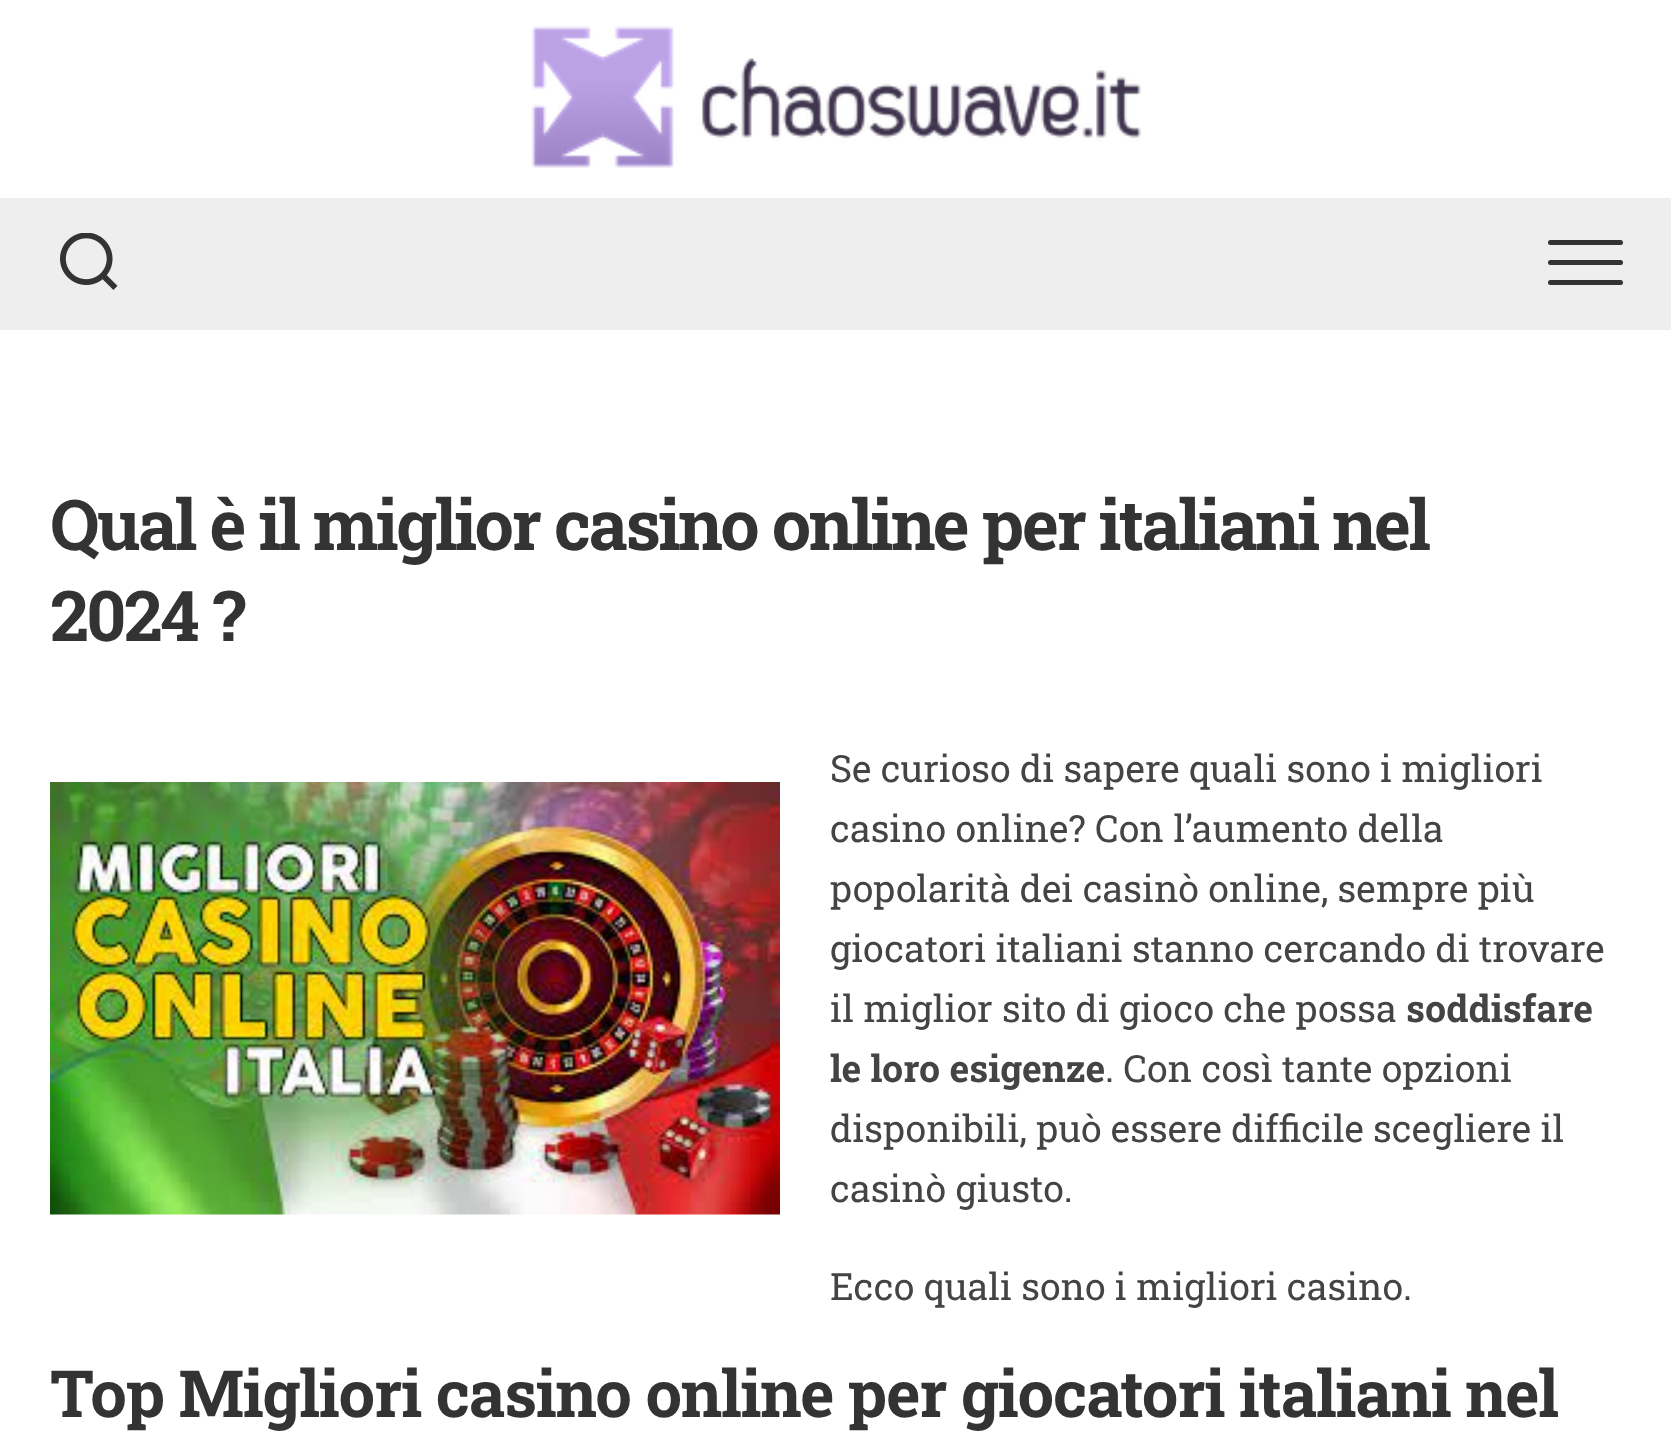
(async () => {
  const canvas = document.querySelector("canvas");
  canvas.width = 1671;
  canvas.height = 1432;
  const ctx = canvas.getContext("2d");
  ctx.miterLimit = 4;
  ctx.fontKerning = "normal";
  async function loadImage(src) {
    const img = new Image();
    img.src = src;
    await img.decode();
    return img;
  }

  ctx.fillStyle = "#ffffff";
  ctx.fillRect(0, 0, 1671, 1432);
  ctx.drawImage(await loadImage("img/1.png"), 531, 26, 610, 142);
  ctx.fillStyle = "#eeeeee";
  ctx.fillRect(0, 198, 1671, 132);
  ctx.fillStyle = "#333333";
  ctx.beginPath();
  ctx.roundRect(1548, 240, 75, 5, 2.5);
  ctx.fill();
  ctx.beginPath();
  ctx.roundRect(1548, 260, 75, 5, 2.5);
  ctx.fill();
  ctx.beginPath();
  ctx.roundRect(1548, 280, 75, 5, 2.5);
  ctx.fill();
  ctx.drawImage(await loadImage("img/2.png"), 60, 233, 58, 57);
  ctx.drawImage(await loadImage("img/3.png"), 50, 782, 730, 433);
  ctx.letterSpacing = "-2.5px";
  ctx.font = "bold 70px Roboto Slab";
  ctx.fillText("Qual è il miglior casino online per italiani nel", 50, 550);
  ctx.fillText("2024 ?", 50, 641);
  ctx.letterSpacing = "0px";
  ctx.font = "37.5px Roboto Slab";
  ctx.fillStyle = "#444444";
  for (const [text, x, y] of [
    ["Se curioso di sapere quali sono i migliori", 830, 782],
    ["casino online? Con l’aumento della", 830, 842],
    ["popolarità dei casinò online, sempre più", 830, 902],
    ["giocatori italiani stanno cercando di trovare", 830, 962],
    ["il miglior sito di gioco che possa", 830, 1022],
  ]) {
    ctx.fillText(text, x, y);
  }
  ctx.font = "bold 37.5px Roboto Slab";
  ctx.fillText("soddisfare", 1406, 1022);
  ctx.fillText("le loro esigenze", 830, 1082);
  ctx.font = "37.5px Roboto Slab";
  for (const [text, x, y] of [
    [". Con così tante opzioni", 1105, 1082],
    ["disponibili, può essere difficile scegliere il", 830, 1142],
    ["casinò giusto.", 830, 1202],
    ["Ecco quali sono i migliori casino.", 830, 1300],
  ]) {
    ctx.fillText(text, x, y);
  }
  ctx.letterSpacing = "-1.25px";
  ctx.font = "bold 65px Roboto Slab";
  ctx.fillStyle = "#333333";
  ctx.fillText("Top Migliori casino online per giocatori italiani nel", 50, 1417);
})();
